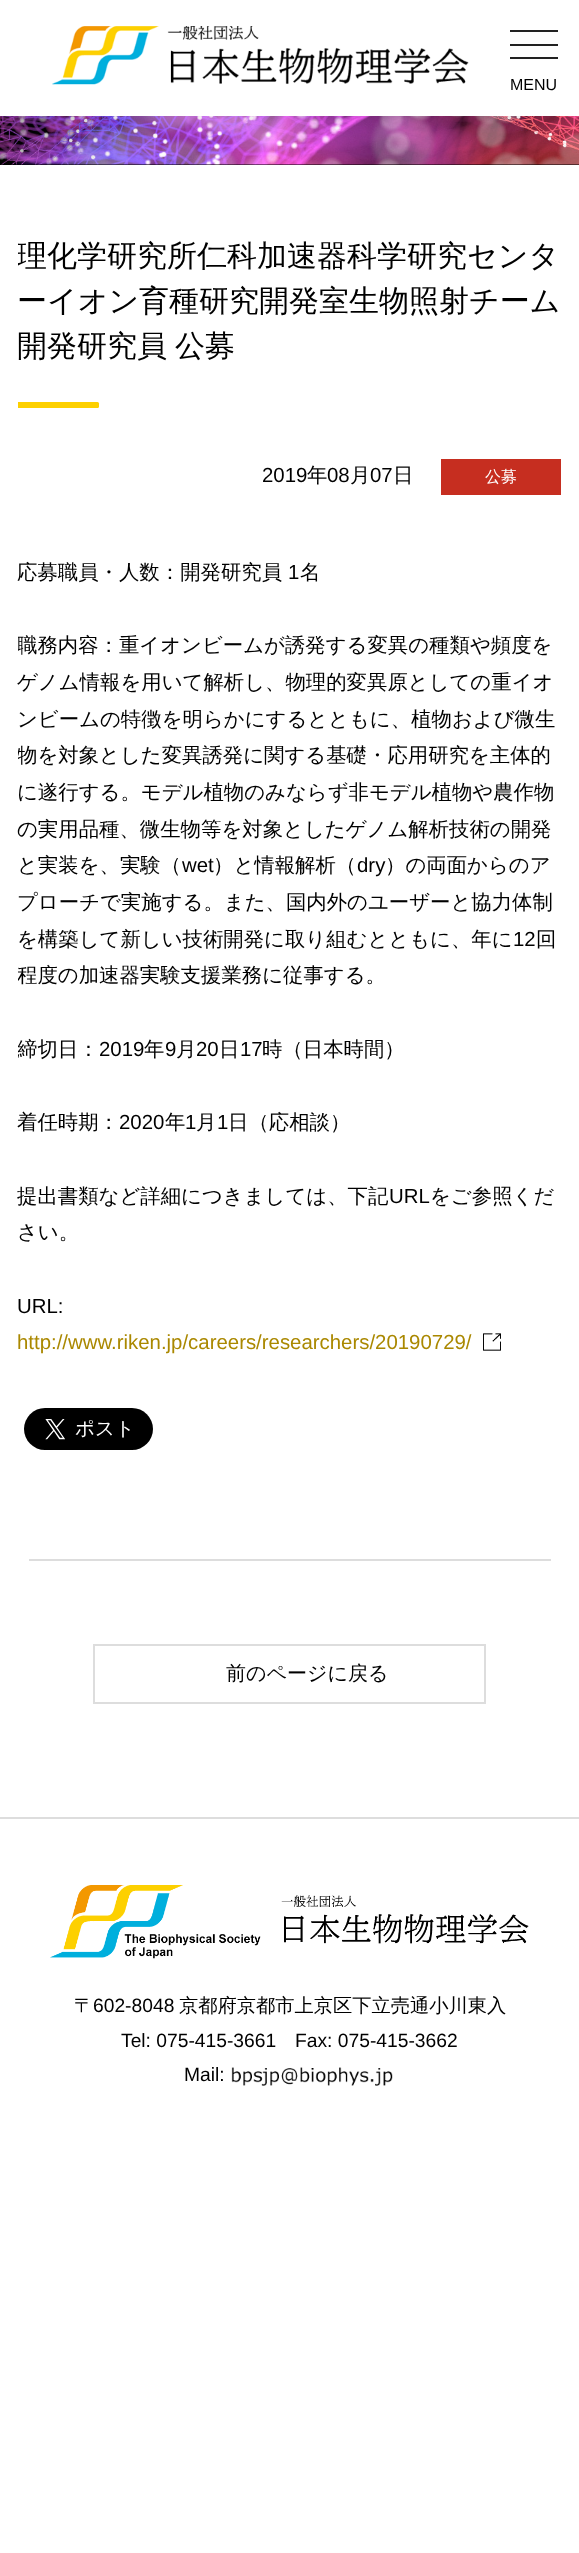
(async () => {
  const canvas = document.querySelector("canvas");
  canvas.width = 579;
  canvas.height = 2553;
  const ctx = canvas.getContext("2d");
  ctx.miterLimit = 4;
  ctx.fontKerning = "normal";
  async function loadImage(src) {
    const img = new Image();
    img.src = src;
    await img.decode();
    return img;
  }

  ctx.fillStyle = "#ffffff";
  ctx.fillRect(0, 0, 579, 2553);
  ctx.fillStyle = "#000000";
  ctx.fillRect(0, 164, 579, 1);
  ctx.drawImage(await loadImage("img/2.png"), 0, 116, 579, 49);
  ctx.fillStyle = "rgba(0, 0, 0, 0.1)";
  ctx.filter = "blur(19px)";
  ctx.beginPath();
  ctx.rect(11, 21, 558, 95);
  ctx.fill();
  ctx.filter = "none";
  for (const [x, y, w, h, color] of [
    [0, 0, 579, 116, "#ffffff"],
    [510, 44, 48, 2, "#222222"],
    [510, 30, 48, 2, "#222222"],
    [510, 57, 48, 2, "#222222"],
  ]) {
    ctx.fillStyle = color;
    ctx.fillRect(x, y, w, h);
  }
  ctx.drawImage(await loadImage("img/1.png"), 52, 26, 417, 59);
  ctx.fillStyle = "#fdd000";
  ctx.beginPath();
  ctx.roundRect(18, 402, 81, 6, [0, 1.5, 1.5, 0]);
  ctx.fill();
  ctx.fillStyle = "#c62e20";
  ctx.fillRect(441, 459, 120, 36);
  ctx.drawImage(await loadImage("img/3.png"), 483, 1333, 18, 18);
  ctx.drawImage(await loadImage("img/4.png"), 24, 1408, 129, 42);
  ctx.fillStyle = "#dddddd";
  ctx.fillRect(29, 1559, 522, 2);
  ctx.strokeStyle = "#dddddd";
  ctx.lineWidth = 2;
  ctx.strokeRect(94, 1645, 391, 58);
  ctx.fillRect(0, 1817, 579, 2);
  ctx.drawImage(await loadImage("img/5.png"), 50, 1885, 479, 74);
  ctx.drawImage(await loadImage("img/6.png"), 231, 2067, 162, 19);
  ctx.font = "16px Liberation Sans";
  ctx.fillStyle = "#000000";
  ctx.fillText("MENU", 510, 90);
  ctx.save();
  ctx.beginPath();
  ctx.rect(18, 165, 543, 1289);
  ctx.clip();
  ctx.font = "500 30px WenQuanYi Zen Hei";
  ctx.fillText("理化学研究所仁科加速器科学研究センタ", 17, 266);
  ctx.restore();
  ctx.font = "500 30px WenQuanYi Zen Hei";
  ctx.fillText("ーイオン育種研究開発室生物照射チーム", 17, 311);
  ctx.wordSpacing = "-1px";
  ctx.fillText("開発研究員 公募", 17, 356);
  ctx.wordSpacing = "0px";
  ctx.font = "20.4px Liberation Sans";
  ctx.fillText("2019", 262, 482);
  ctx.font = "500 20.4px WenQuanYi Zen Hei";
  ctx.fillText("年", 307, 482);
  ctx.font = "20.4px Liberation Sans";
  ctx.fillText("08", 327, 482);
  ctx.font = "500 20.4px WenQuanYi Zen Hei";
  ctx.fillText("月", 350, 482);
  ctx.font = "20.4px Liberation Sans";
  ctx.fillText("07", 370, 482);
  ctx.font = "500 20.4px WenQuanYi Zen Hei";
  ctx.fillText("日", 393, 482);
  ctx.font = "500 16px WenQuanYi Zen Hei";
  ctx.fillStyle = "#ffffff";
  ctx.fillText("公募", 485, 482);
  ctx.font = "500 20.4px WenQuanYi Zen Hei";
  ctx.fillStyle = "#000000";
  ctx.fillText("応募職員・人数：開発研究員", 17, 579);
  ctx.font = "20.4px Liberation Sans";
  ctx.fillText("1", 288, 579);
  ctx.font = "500 20.4px WenQuanYi Zen Hei";
  ctx.fillText("名", 300, 579);
  ctx.save();
  ctx.beginPath();
  ctx.rect(18, 165, 543, 1289);
  ctx.clip();
  ctx.fillText("職務内容：重イオンビームが誘発する変異の種類や頻度を", 17, 652);
  ctx.restore();
  ctx.fillText("ゲノム情報を用いて解析し、物理的変異原としての重イオ", 17, 689);
  ctx.fillText("ンビームの特徴を明らかにするとともに、植物および微生", 17, 726);
  ctx.save();
  ctx.beginPath();
  ctx.rect(18, 165, 543, 1289);
  ctx.clip();
  ctx.fillText("物を対象とした変異誘発に関する基礎・応用研究を主体的", 17, 762);
  ctx.restore();
  for (const [text, x, y] of [
    ["に遂行する。モデル植物のみならず非モデル植物や農作物", 17, 799],
    ["の実用品種、微生物等を対象としたゲノム解析技術の開発", 17, 836],
    ["と実装を、実験（", 17, 872],
  ]) {
    ctx.fillText(text, x, y);
  }
  ctx.font = "20.4px Liberation Sans";
  ctx.fillText("wet", 182, 872);
  ctx.font = "500 20.4px WenQuanYi Zen Hei";
  ctx.fillText("）と情報解析（", 213, 872);
  ctx.font = "20.4px Liberation Sans";
  ctx.fillText("dry", 357, 872);
  ctx.font = "500 20.4px WenQuanYi Zen Hei";
  for (const [text, x, y] of [
    ["）の両面からのア", 385, 872],
    ["プローチで実施する。また、国内外のユーザーと協力体制", 17, 909],
    ["を構築して新しい技術開発に取り組むとともに、年に", 17, 946],
  ]) {
    ctx.fillText(text, x, y);
  }
  ctx.font = "20.4px Liberation Sans";
  ctx.fillText("12", 513, 946);
  ctx.font = "500 20.4px WenQuanYi Zen Hei";
  ctx.fillText("回", 536, 946);
  ctx.save();
  ctx.beginPath();
  ctx.rect(18, 165, 543, 1289);
  ctx.clip();
  ctx.fillText("程度の加速器実験支援業務に従事する。", 17, 982);
  ctx.fillText("締切日：", 17, 1056);
  ctx.restore();
  ctx.font = "20.4px Liberation Sans";
  ctx.fillText("2019", 99, 1056);
  ctx.font = "500 20.4px WenQuanYi Zen Hei";
  ctx.fillText("年", 144, 1056);
  ctx.font = "20.4px Liberation Sans";
  ctx.fillText("9", 165, 1056);
  ctx.font = "500 20.4px WenQuanYi Zen Hei";
  ctx.fillText("月", 176, 1056);
  ctx.font = "20.4px Liberation Sans";
  ctx.fillText("20", 196, 1056);
  ctx.font = "500 20.4px WenQuanYi Zen Hei";
  ctx.fillText("日", 219, 1056);
  ctx.font = "20.4px Liberation Sans";
  ctx.fillText("17", 240, 1056);
  ctx.font = "500 20.4px WenQuanYi Zen Hei";
  ctx.fillText("時（日本時間）", 262, 1056);
  ctx.fillText("着任時期：", 17, 1129);
  ctx.font = "20.4px Liberation Sans";
  ctx.fillText("2020", 119, 1129);
  ctx.font = "500 20.4px WenQuanYi Zen Hei";
  ctx.fillText("年", 165, 1129);
  ctx.font = "20.4px Liberation Sans";
  ctx.fillText("1", 185, 1129);
  ctx.font = "500 20.4px WenQuanYi Zen Hei";
  ctx.fillText("月", 196, 1129);
  ctx.font = "20.4px Liberation Sans";
  ctx.fillText("1", 217, 1129);
  ctx.font = "500 20.4px WenQuanYi Zen Hei";
  ctx.fillText("日（応相談）", 228, 1129);
  ctx.fillText("提出書類など詳細につきましては、下記", 17, 1203);
  ctx.font = "20.4px Liberation Sans";
  ctx.fillText("URL", 389, 1203);
  ctx.font = "500 20.4px WenQuanYi Zen Hei";
  ctx.fillText("をご参照くだ", 430, 1203);
  ctx.fillText("さい。", 17, 1239);
  ctx.font = "20.4px Liberation Sans";
  ctx.fillText("URL:", 17, 1313);
  ctx.fillStyle = "#aa8800";
  ctx.fillText("http://www.riken.jp/careers/researchers/20190729/", 17, 1349);
  ctx.font = "500 20px WenQuanYi Zen Hei";
  ctx.fillStyle = "#000000";
  ctx.fillText("前のページに戻る", 226, 1680);
  ctx.font = "500 19.25px WenQuanYi Zen Hei";
  ctx.fillText("〒", 74, 2012);
  ctx.font = "19.25px Liberation Sans";
  ctx.fillText("602-8048", 93, 2012);
  ctx.font = "500 19.25px WenQuanYi Zen Hei";
  ctx.fillText("京都府京都市上京区下立売通小川東入", 179, 2012);
  ctx.font = "19.25px Liberation Sans";
  for (const [text, x, y] of [
    ["Tel: 075-415-3661", 121, 2047],
    ["Fax: 075-415-3662", 295, 2047],
    ["Mail:", 184, 2081],
  ]) {
    ctx.fillText(text, x, y);
  }
})();
